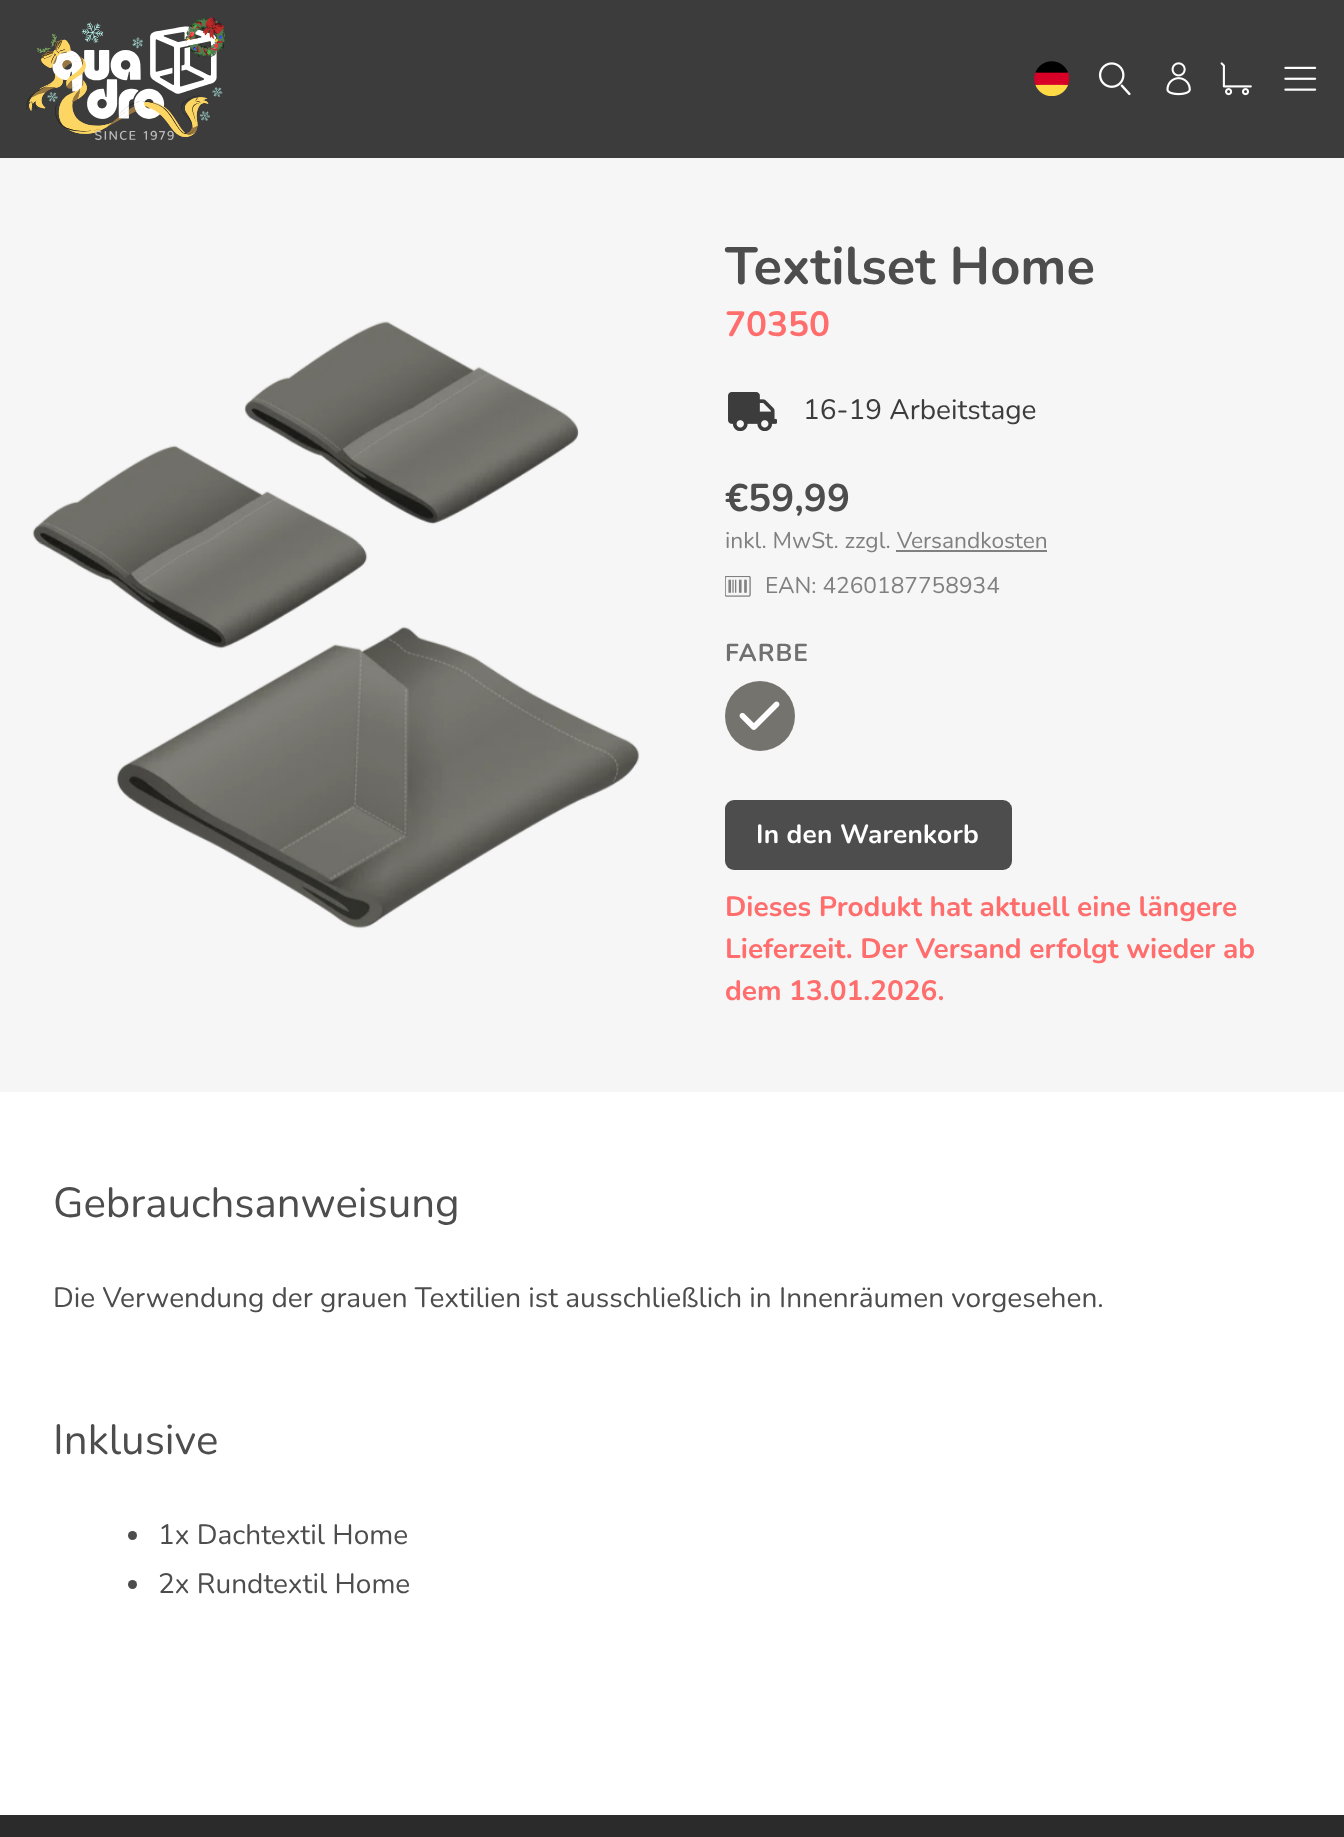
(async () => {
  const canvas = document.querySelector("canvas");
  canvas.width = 1344;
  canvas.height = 1837;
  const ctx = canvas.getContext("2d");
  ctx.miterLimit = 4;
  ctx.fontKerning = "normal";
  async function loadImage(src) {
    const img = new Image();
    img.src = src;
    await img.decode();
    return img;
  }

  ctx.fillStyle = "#ffffff";
  ctx.fillRect(0, 0, 1344, 1837);
  ctx.fillStyle = "#3c3c3c";
  ctx.fillRect(0, 0, 1344, 158);
  ctx.drawImage(await loadImage("img/1.png"), 26, 17, 199, 123);
  ctx.drawImage(await loadImage("img/2.png"), 1034, 61, 35, 35);
  ctx.drawImage(await loadImage("img/3.png"), 1098, 62, 33, 34);
  ctx.drawImage(await loadImage("img/4.png"), 1166, 62, 25, 34);
  ctx.drawImage(await loadImage("img/5.png"), 1220, 62, 32, 34);
  ctx.drawImage(await loadImage("img/6.png"), 1284, 66, 33, 25);
  ctx.fillStyle = "#f6f6f6";
  ctx.fillRect(0, 158, 1344, 934);
  ctx.drawImage(await loadImage("img/7.png"), 32, 321, 608, 608);
  ctx.drawImage(await loadImage("img/8.png"), 728, 392, 49, 39);
  ctx.fillStyle = "#808080";
  ctx.fillRect(896, 550, 151, 2);
  ctx.drawImage(await loadImage("img/9.png"), 725, 576, 26, 21);
  ctx.fillStyle = "#75736e";
  ctx.beginPath();
  ctx.arc(760, 716, 35, 0, Math.PI * 2);
  ctx.fill();
  ctx.drawImage(await loadImage("img/10.png"), 739, 701, 41, 29);
  ctx.fillStyle = "#4d4d4d";
  ctx.beginPath();
  ctx.roundRect(725, 800, 287, 70, 9);
  ctx.fill();
  ctx.beginPath();
  ctx.arc(132.5, 1535.5, 4.5, 0, Math.PI * 2);
  ctx.fill();
  ctx.beginPath();
  ctx.arc(132.5, 1584.5, 4.5, 0, Math.PI * 2);
  ctx.fill();
  ctx.fillStyle = "#2b2b2b";
  ctx.fillRect(0, 1815, 1344, 22);
  ctx.font = "200 52.5px Nunito";
  ctx.fillStyle = "#4d4d4d";
  ctx.fillText("Textilset Home", 725, 284);
  ctx.font = "200 35px Nunito";
  ctx.fillStyle = "#ff6d6d";
  ctx.fillText("70350", 725, 336);
  ctx.font = "200 28px 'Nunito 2'";
  ctx.fillStyle = "#3c3c3c";
  ctx.fillText("16-19 Arbeitstage", 803, 419);
  ctx.font = "200 38.5px Nunito";
  ctx.fillStyle = "#4d4d4d";
  ctx.fillText("€59,99", 725, 511);
  ctx.font = "200 22.75px 'Nunito 2'";
  ctx.fillStyle = "#808080";
  ctx.fillText("inkl. MwSt. zzgl. Versandkosten", 725, 548);
  ctx.fillText("EAN: 4260187758934", 765, 593);
  ctx.letterSpacing = "1px";
  ctx.font = "200 24.5px Nunito";
  ctx.fillStyle = "#707070";
  ctx.fillText("FARBE", 725, 661);
  ctx.letterSpacing = "0.25px";
  ctx.font = "200 26.25px Nunito";
  ctx.fillStyle = "#ffffff";
  ctx.fillText("In den Warenkorb", 756, 843);
  ctx.letterSpacing = "0px";
  ctx.font = "200 28px Nunito";
  ctx.fillStyle = "#ff6d6d";
  for (const [text, x, y] of [
    ["Dieses Produkt hat aktuell eine längere", 725, 916],
    ["Lieferzeit. Der Versand erfolgt wieder ab", 725, 958],
    ["dem 13.01.2026.", 725, 1000],
  ]) {
    ctx.fillText(text, x, y);
  }
  ctx.font = "200 42px 'Nunito 2'";
  ctx.fillStyle = "#4d4d4d";
  ctx.fillText("Gebrauchsanweisung", 53, 1217);
  ctx.font = "200 28px 'Nunito 2'";
  ctx.fillText("Die Verwendung der grauen Textilien ist ausschließlich in Innenräumen vorgesehen.", 53, 1307);
  ctx.font = "200 42px 'Nunito 2'";
  ctx.fillText("Inklusive", 53, 1454);
  ctx.font = "200 28px 'Nunito 2'";
  ctx.fillText("1x Dachtextil Home", 158, 1544);
  ctx.fillText("2x Rundtextil Home", 158, 1593);
})();
